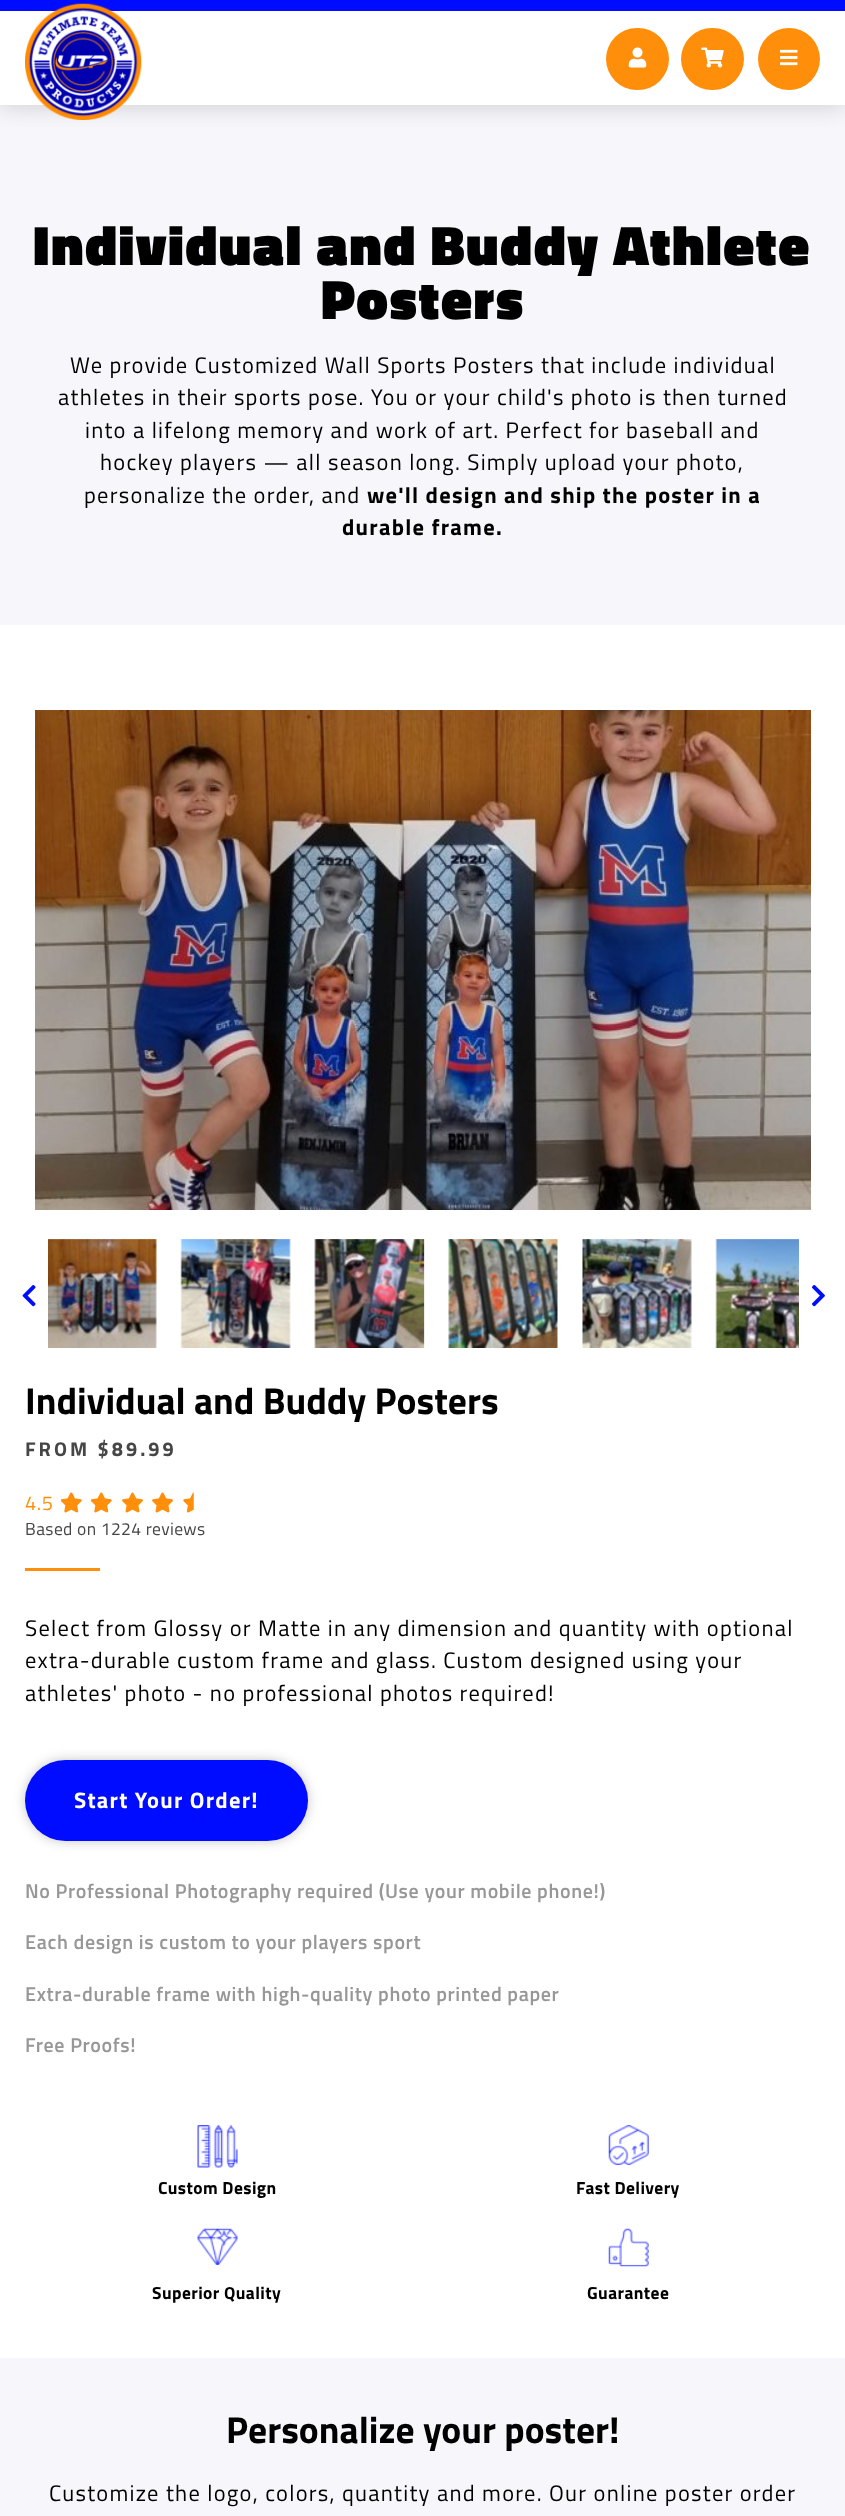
(async () => {
  const canvas = document.querySelector("canvas");
  canvas.width = 845;
  canvas.height = 2516;
  const ctx = canvas.getContext("2d");
  ctx.miterLimit = 4;
  ctx.fontKerning = "normal";
  async function loadImage(src) {
    const img = new Image();
    img.src = src;
    await img.decode();
    return img;
  }

  ctx.fillStyle = "#ffffff";
  ctx.fillRect(0, 0, 845, 2516);
  ctx.fillStyle = "#f6f6fb";
  ctx.fillRect(0, 105, 845, 520);
  ctx.save();
  ctx.beginPath();
  ctx.rect(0, 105, 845, 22);
  ctx.clip();
  ctx.fillStyle = "rgba(161, 161, 161, 0.5)";
  ctx.filter = "blur(12.5px)";
  ctx.beginPath();
  ctx.rect(0, 0, 845, 105);
  ctx.fill();
  ctx.filter = "none";
  ctx.restore();
  ctx.fillStyle = "#000cff";
  ctx.fillRect(0, 0, 845, 11);
  ctx.drawImage(await loadImage("img/1.png"), 25, 3, 117, 117);
  ctx.fillStyle = "#ff8f0a";
  ctx.beginPath();
  ctx.roundRect(606, 28, 63, 62, 31);
  ctx.fill();
  ctx.drawImage(await loadImage("img/2.png"), 628, 47, 19, 21);
  ctx.beginPath();
  ctx.roundRect(681, 28, 63, 62, 31);
  ctx.fill();
  ctx.drawImage(await loadImage("img/3.png"), 701, 47, 23, 21);
  ctx.beginPath();
  ctx.arc(789, 59, 31, 0, Math.PI * 2);
  ctx.fill();
  ctx.drawImage(await loadImage("img/4.png"), 780, 49, 18, 17);
  ctx.drawImage(await loadImage("img/5.png"), 35, 710, 776, 500);
  ctx.drawImage(await loadImage("img/6.png"), 22, 1285, 14, 22);
  ctx.drawImage(await loadImage("img/7.png"), 48, 1239, 109, 109);
  ctx.drawImage(await loadImage("img/8.png"), 180, 1239, 111, 109);
  ctx.drawImage(await loadImage("img/9.png"), 314, 1239, 111, 109);
  ctx.drawImage(await loadImage("img/10.png"), 448, 1239, 110, 109);
  ctx.drawImage(await loadImage("img/11.png"), 582, 1239, 110, 109);
  ctx.drawImage(await loadImage("img/12.png"), 715, 1239, 84, 109);
  ctx.drawImage(await loadImage("img/13.png"), 812, 1285, 13, 22);
  ctx.drawImage(await loadImage("img/14.png"), 60, 1492, 22, 21);
  ctx.drawImage(await loadImage("img/14.png"), 90, 1492, 22, 21);
  ctx.drawImage(await loadImage("img/15.png"), 122, 1492, 21, 21);
  ctx.drawImage(await loadImage("img/15.png"), 152, 1492, 21, 21);
  ctx.drawImage(await loadImage("img/16.png"), 183, 1492, 11, 21);
  ctx.fillRect(25, 1568, 75, 3);
  ctx.fillStyle = "rgba(140, 140, 140, 0.5)";
  ctx.filter = "blur(6px)";
  ctx.beginPath();
  ctx.roundRect(25, 1760, 283, 81, 40.5);
  ctx.fill();
  ctx.filter = "none";
  ctx.fillStyle = "#000cff";
  ctx.beginPath();
  ctx.roundRect(25, 1760, 283, 81, 40.5);
  ctx.fill();
  ctx.drawImage(await loadImage("img/17.png"), 197, 2125, 41, 43);
  ctx.drawImage(await loadImage("img/18.png"), 608, 2125, 41, 40);
  ctx.drawImage(await loadImage("img/19.png"), 197, 2228, 41, 37);
  ctx.drawImage(await loadImage("img/20.png"), 608, 2228, 41, 39);
  ctx.fillStyle = "#f6f6fb";
  ctx.fillRect(0, 2358, 845, 158);
  ctx.letterSpacing = "1.5px";
  ctx.font = "900 56.25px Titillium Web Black";
  ctx.fillStyle = "#000000";
  ctx.fillText("Individual and Buddy Athlete", 33, 265);
  ctx.fillText("Posters", 321, 319);
  ctx.letterSpacing = "1.25px";
  ctx.font = "22.5px Titillium Web";
  for (const [text, x, y] of [
    ["We provide Customized Wall Sports Posters that include individual", 70, 373],
    ["athletes in their sports pose. You or your child's photo is then turned", 58, 405],
    ["into a lifelong memory and work of art. Perfect for baseball and", 85, 438],
    ["hockey players — all season long. Simply upload your photo,", 100, 470],
    ["personalize the order, and", 84, 503],
  ]) {
    ctx.fillText(text, x, y);
  }
  ctx.font = "bold 22.5px Titillium Web";
  ctx.fillText("we'll design and ship the poster in a", 367, 503);
  ctx.fillText("durable frame.", 342, 535);
  ctx.letterSpacing = "0px";
  ctx.font = "bold 37.5px Titillium Web";
  ctx.fillText("Individual and Buddy Posters", 25, 1414);
  ctx.letterSpacing = "3px";
  ctx.font = "bold 20px Titillium Web";
  ctx.fillStyle = "#464646";
  ctx.fillText("FROM $89.99", 25, 1456);
  ctx.letterSpacing = "0.62px";
  ctx.font = "20px Titillium Web";
  ctx.fillStyle = "#ff8f0a";
  ctx.fillText("4.5", 25, 1510);
  ctx.letterSpacing = "0.4px";
  ctx.font = "17.5px Titillium Web";
  ctx.fillStyle = "#464646";
  ctx.fillText("Based on 1224 reviews", 25, 1535);
  ctx.letterSpacing = "1.25px";
  ctx.font = "22.5px Titillium Web";
  ctx.fillStyle = "#000000";
  for (const [text, x, y] of [
    ["Select from Glossy or Matte in any dimension and quantity with optional", 25, 1636],
    ["extra-durable custom frame and glass. Custom designed using your", 25, 1668],
    ["athletes' photo - no professional photos required!", 25, 1701],
  ]) {
    ctx.fillText(text, x, y);
  }
  ctx.font = "bold 22.5px Titillium Web";
  ctx.fillStyle = "#ffffff";
  ctx.fillText("Start Your Order!", 74, 1808);
  ctx.letterSpacing = "0.62px";
  ctx.font = "600 20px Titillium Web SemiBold";
  ctx.fillStyle = "#979797";
  for (const [text, x, y] of [
    ["No Professional Photography required (Use your mobile phone!)", 25, 1898],
    ["Each design is custom to your players sport", 25, 1949],
    ["Extra-durable frame with high-quality photo printed paper", 25, 2001],
    ["Free Proofs!", 25, 2052],
  ]) {
    ctx.fillText(text, x, y);
  }
  ctx.letterSpacing = "0.4px";
  ctx.font = "bold 17.5px Titillium Web";
  ctx.fillStyle = "#000000";
  for (const [text, x, y] of [
    ["Custom Design", 158, 2194],
    ["Fast Delivery", 576, 2194],
    ["Superior Quality", 152, 2299],
    ["Guarantee", 587, 2299],
  ]) {
    ctx.fillText(text, x, y);
  }
  ctx.letterSpacing = "0px";
  ctx.font = "bold 37.5px Titillium Web";
  ctx.fillText("Personalize your poster!", 226, 2443);
  ctx.letterSpacing = "1.25px";
  ctx.font = "22.5px Titillium Web";
  ctx.fillText("Customize the logo, colors, quantity and more. Our online poster order", 49, 2501);
})();
